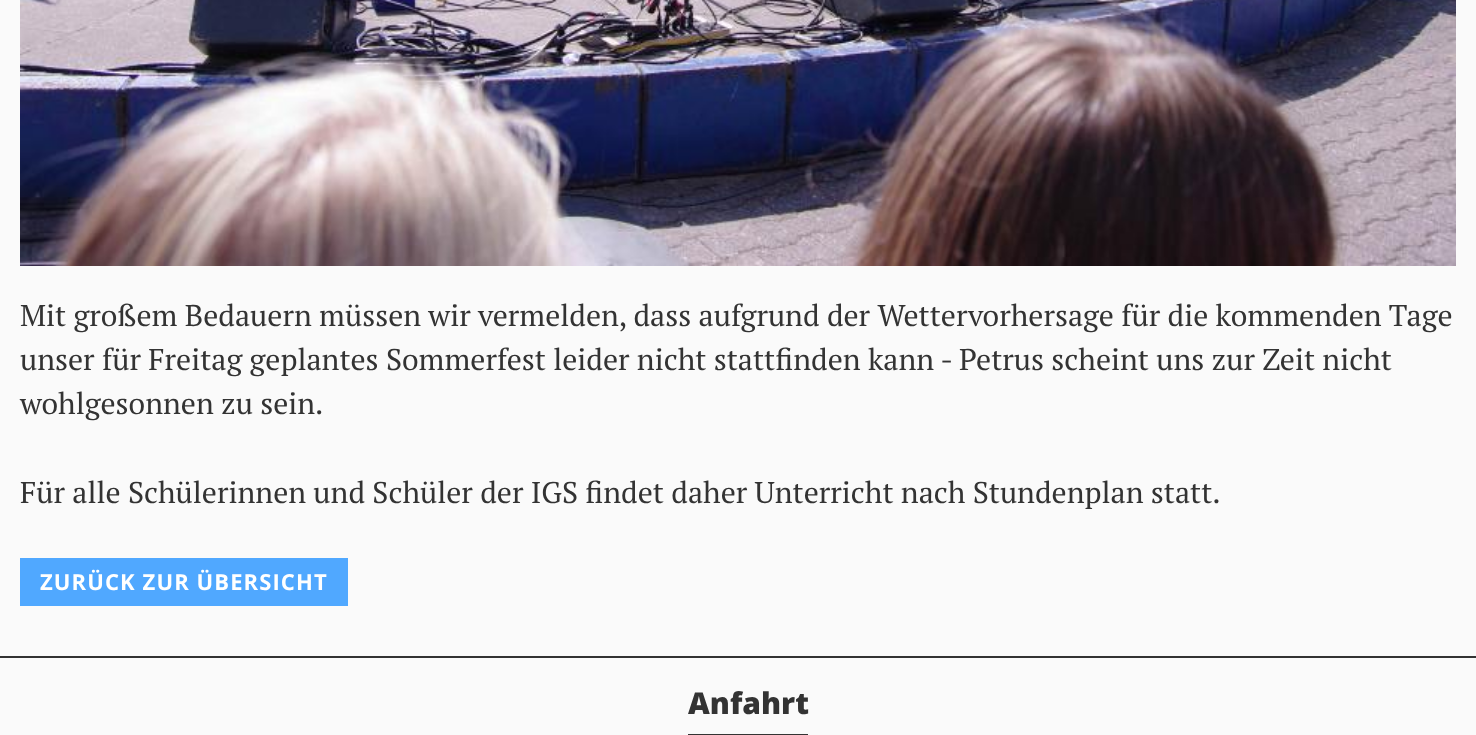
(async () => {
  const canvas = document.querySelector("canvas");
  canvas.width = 1476;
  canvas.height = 735;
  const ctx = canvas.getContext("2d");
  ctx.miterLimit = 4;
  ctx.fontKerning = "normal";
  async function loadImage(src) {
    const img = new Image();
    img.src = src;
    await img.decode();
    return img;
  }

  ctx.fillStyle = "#fafafa";
  ctx.fillRect(0, 0, 1476, 735);
  ctx.drawImage(await loadImage("img/1.png"), 20, 0, 1436, 266);
  for (const [x, y, w, h, color] of [
    [20, 558, 328, 48, "#50a8ff"],
    [0, 656, 1476, 2, "#333333"],
    [688, 734, 120, 1, "#333333"],
  ]) {
    ctx.fillStyle = color;
    ctx.fillRect(x, y, w, h);
  }
  ctx.font = "30px PT Serif";
  for (const [text, x, y] of [
    ["Mit großem Bedauern müssen wir vermelden, dass aufgrund der Wettervorhersage für die kommenden Tage", 20, 326],
    ["unser für Freitag geplantes Sommerfest leider nicht stattfinden kann - Petrus scheint uns zur Zeit nicht", 20, 370],
    ["wohlgesonnen zu sein.", 20, 414],
    ["Für alle Schülerinnen und Schüler der IGS findet daher Unterricht nach Stundenplan statt.", 20, 503],
  ]) {
    ctx.fillText(text, x, y);
  }
  ctx.letterSpacing = "1.1px";
  ctx.font = "bold 22px Open Sans";
  ctx.fillStyle = "#ffffff";
  ctx.fillText("ZURÜCK ZUR ÜBERSICHT", 40, 590);
  ctx.letterSpacing = "0px";
  ctx.font = "800 30px Open Sans";
  ctx.fillStyle = "#333333";
  ctx.fillText("Anfahrt", 688, 714);
})();
